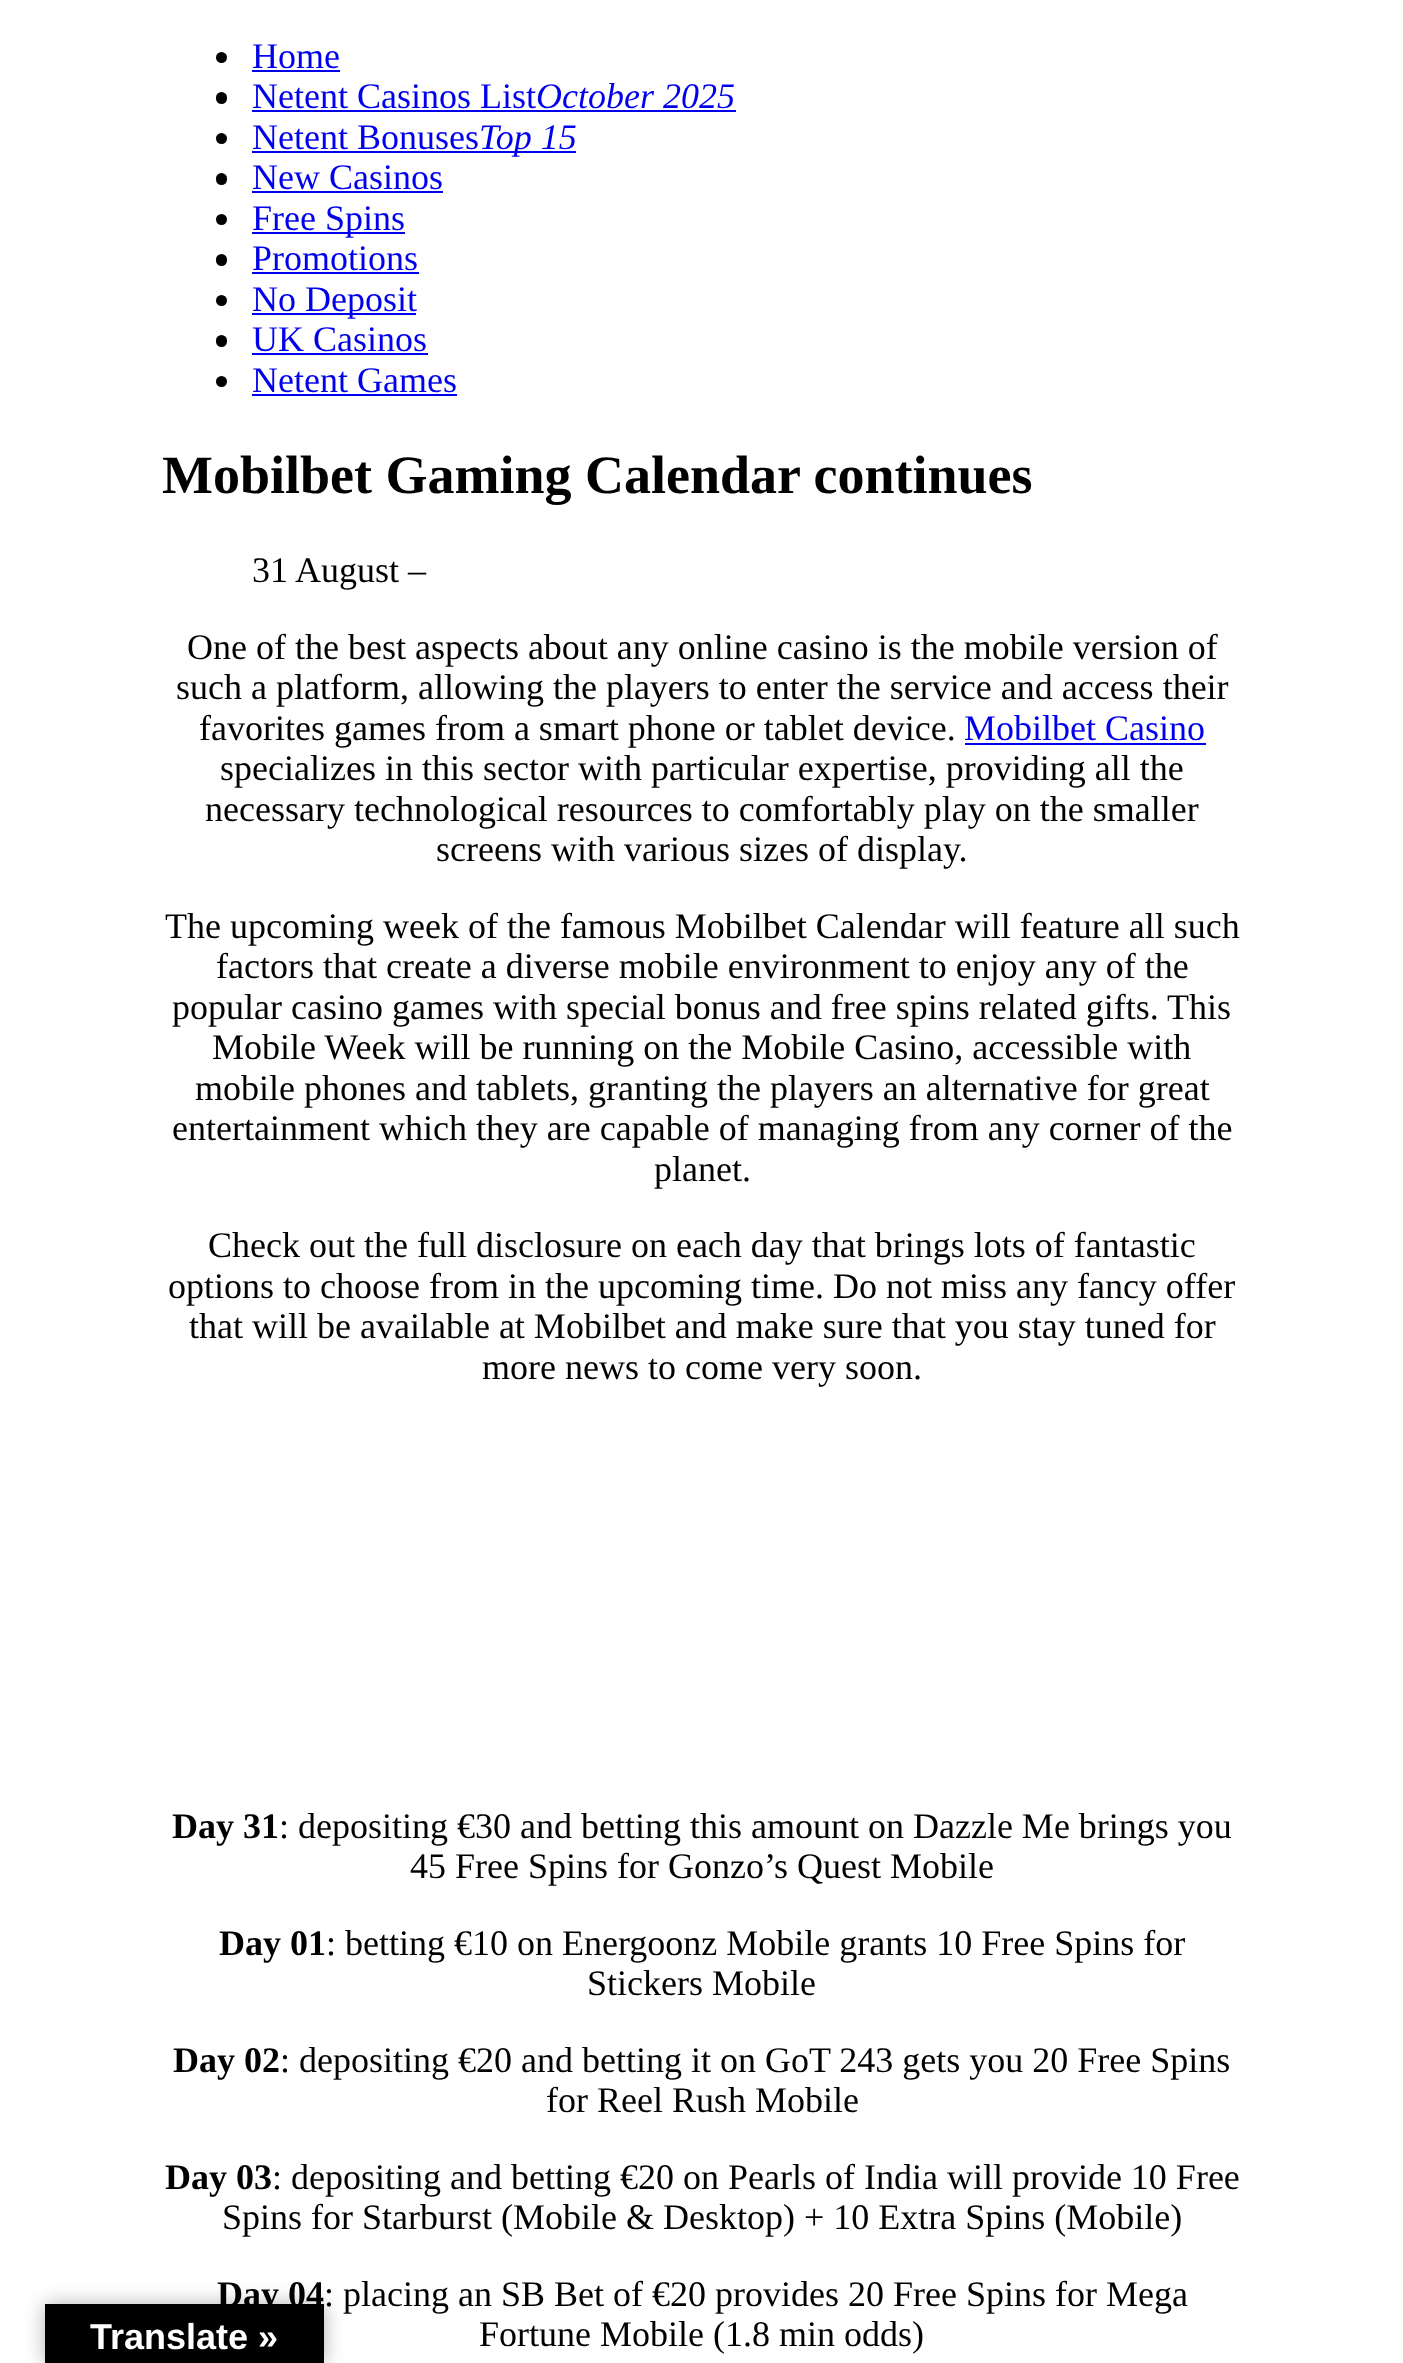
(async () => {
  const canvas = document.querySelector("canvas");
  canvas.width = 1403;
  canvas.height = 2363;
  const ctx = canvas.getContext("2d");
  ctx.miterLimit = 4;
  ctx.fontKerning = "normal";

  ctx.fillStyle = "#ffffff";
  ctx.fillRect(0, 0, 1403, 2363);
  ctx.fillStyle = "#000000";
  ctx.beginPath();
  ctx.arc(221.5, 57.5, 5.5, 0, Math.PI * 2);
  ctx.fill();
  ctx.fillStyle = "#0000ee";
  ctx.fillRect(252, 70, 88, 2);
  ctx.fillStyle = "#000000";
  ctx.beginPath();
  ctx.roundRect(216, 92, 11, 12, 5.5);
  ctx.fill();
  ctx.fillStyle = "#0000ee";
  ctx.fillRect(252, 110, 484, 2);
  ctx.fillStyle = "#000000";
  ctx.beginPath();
  ctx.arc(221.5, 138.5, 5.5, 0, Math.PI * 2);
  ctx.fill();
  ctx.fillStyle = "#0000ee";
  ctx.fillRect(252, 151, 324, 2);
  ctx.fillStyle = "#000000";
  ctx.beginPath();
  ctx.roundRect(216, 173, 11, 12, 5.5);
  ctx.fill();
  ctx.fillStyle = "#0000ee";
  ctx.fillRect(252, 191, 191, 2);
  ctx.fillStyle = "#000000";
  ctx.beginPath();
  ctx.arc(221.5, 219.5, 5.5, 0, Math.PI * 2);
  ctx.fill();
  ctx.fillStyle = "#0000ee";
  ctx.fillRect(252, 232, 153, 2);
  ctx.fillStyle = "#000000";
  ctx.beginPath();
  ctx.roundRect(216, 254, 11, 12, 5.5);
  ctx.fill();
  ctx.fillStyle = "#0000ee";
  ctx.fillRect(252, 272, 167, 2);
  ctx.fillStyle = "#000000";
  ctx.beginPath();
  ctx.arc(221.5, 300.5, 5.5, 0, Math.PI * 2);
  ctx.fill();
  ctx.fillStyle = "#0000ee";
  ctx.fillRect(252, 313, 164, 2);
  ctx.fillStyle = "#000000";
  ctx.beginPath();
  ctx.roundRect(216, 335, 11, 12, 5.5);
  ctx.fill();
  ctx.fillStyle = "#0000ee";
  ctx.fillRect(252, 353, 176, 2);
  ctx.fillStyle = "#000000";
  ctx.beginPath();
  ctx.arc(221.5, 381.5, 5.5, 0, Math.PI * 2);
  ctx.fill();
  ctx.fillStyle = "#0000ee";
  ctx.fillRect(252, 394, 205, 2);
  ctx.fillRect(965, 743, 241, 2);
  ctx.fillStyle = "rgba(0, 0, 0, 0.3)";
  ctx.filter = "blur(10px)";
  ctx.beginPath();
  ctx.rect(45, 2304, 279, 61);
  ctx.fill();
  ctx.filter = "none";
  ctx.fillStyle = "#000000";
  ctx.fillRect(45, 2304, 279, 59);
  ctx.font = "36px Liberation Serif";
  ctx.fillStyle = "#0000ee";
  ctx.fillText("Home", 252, 68);
  ctx.fillText("Netent Casinos List", 252, 108);
  ctx.font = "italic 36px Liberation Serif";
  ctx.fillText("October 2025", 536, 108);
  ctx.font = "36px Liberation Serif";
  ctx.fillText("Netent Bonuses", 252, 149);
  ctx.font = "italic 36px Liberation Serif";
  ctx.fillText("Top 15", 479, 149);
  ctx.font = "36px Liberation Serif";
  for (const [text, x, y] of [
    ["New Casinos", 252, 189],
    ["Free Spins", 252, 230],
    ["Promotions", 252, 270],
    ["No Deposit", 252, 311],
    ["UK Casinos", 252, 351],
    ["Netent Games", 252, 392],
  ]) {
    ctx.fillText(text, x, y);
  }
  ctx.font = "bold 54px Liberation Serif";
  ctx.fillStyle = "#000000";
  ctx.fillText("Mobilbet Gaming Calendar continues", 162, 493);
  ctx.font = "36px Liberation Serif";
  for (const [text, x, y] of [
    ["31 August –", 252, 582],
    ["One of the best aspects about any online casino is the mobile version of", 187, 659],
    ["such a platform, allowing the players to enter the service and access their", 176, 699],
    ["favorites games from a smart phone or tablet device.", 199, 740],
  ]) {
    ctx.fillText(text, x, y);
  }
  ctx.fillStyle = "#0000ee";
  ctx.fillText("Mobilbet Casino", 964, 740);
  ctx.fillStyle = "#000000";
  for (const [text, x, y] of [
    ["specializes in this sector with particular expertise, providing all the", 220, 780],
    ["necessary technological resources to comfortably play on the smaller", 205, 821],
    ["screens with various sizes of display.", 436, 861],
    ["The upcoming week of the famous Mobilbet Calendar will feature all such", 165, 938],
    ["factors that create a diverse mobile environment to enjoy any of the", 216, 978],
    ["popular casino games with special bonus and free spins related gifts. This", 172, 1019],
    ["Mobile Week will be running on the Mobile Casino, accessible with", 212, 1059],
    ["mobile phones and tablets, granting the players an alternative for great", 195, 1100],
    ["entertainment which they are capable of managing from any corner of the", 172, 1140],
    ["planet.", 654, 1181],
    ["Check out the full disclosure on each day that brings lots of fantastic", 208, 1257],
    ["options to choose from in the upcoming time. Do not miss any fancy offer", 168, 1298],
    ["that will be available at Mobilbet and make sure that you stay tuned for", 189, 1338],
    ["more news to come very soon.", 482, 1379],
  ]) {
    ctx.fillText(text, x, y);
  }
  ctx.font = "bold 36px Liberation Serif";
  ctx.fillText("Day 31", 172, 1838);
  ctx.font = "36px Liberation Serif";
  ctx.fillText(": depositing €30 and betting this amount on Dazzle Me brings you", 279, 1838);
  ctx.fillText("45 Free Spins for Gonzo’s Quest Mobile", 410, 1878);
  ctx.font = "bold 36px Liberation Serif";
  ctx.fillText("Day 01", 219, 1955);
  ctx.font = "36px Liberation Serif";
  ctx.fillText(": betting €10 on Energoonz Mobile grants 10 Free Spins for", 326, 1955);
  ctx.fillText("Stickers Mobile", 587, 1995);
  ctx.font = "bold 36px Liberation Serif";
  ctx.fillText("Day 02", 173, 2072);
  ctx.font = "36px Liberation Serif";
  ctx.fillText(": depositing €20 and betting it on GoT 243 gets you 20 Free Spins", 280, 2072);
  ctx.fillText("for Reel Rush Mobile", 546, 2112);
  ctx.font = "bold 36px Liberation Serif";
  ctx.fillText("Day 03", 165, 2189);
  ctx.font = "36px Liberation Serif";
  ctx.fillText(": depositing and betting €20 on Pearls of India will provide 10 Free", 272, 2189);
  ctx.fillText("Spins for Starburst (Mobile & Desktop) + 10 Extra Spins (Mobile)", 222, 2229);
  ctx.font = "bold 36px Liberation Serif";
  ctx.fillText("Day 04", 217, 2306);
  ctx.font = "36px Liberation Serif";
  ctx.fillText(": placing an SB Bet of €20 provides 20 Free Spins for Mega", 324, 2306);
  ctx.fillText("Fortune Mobile (1.8 min odds)", 479, 2346);
  ctx.font = "bold 36px Liberation Sans";
  ctx.fillStyle = "#ffffff";
  ctx.fillText("Translate »", 90, 2349);
})();
